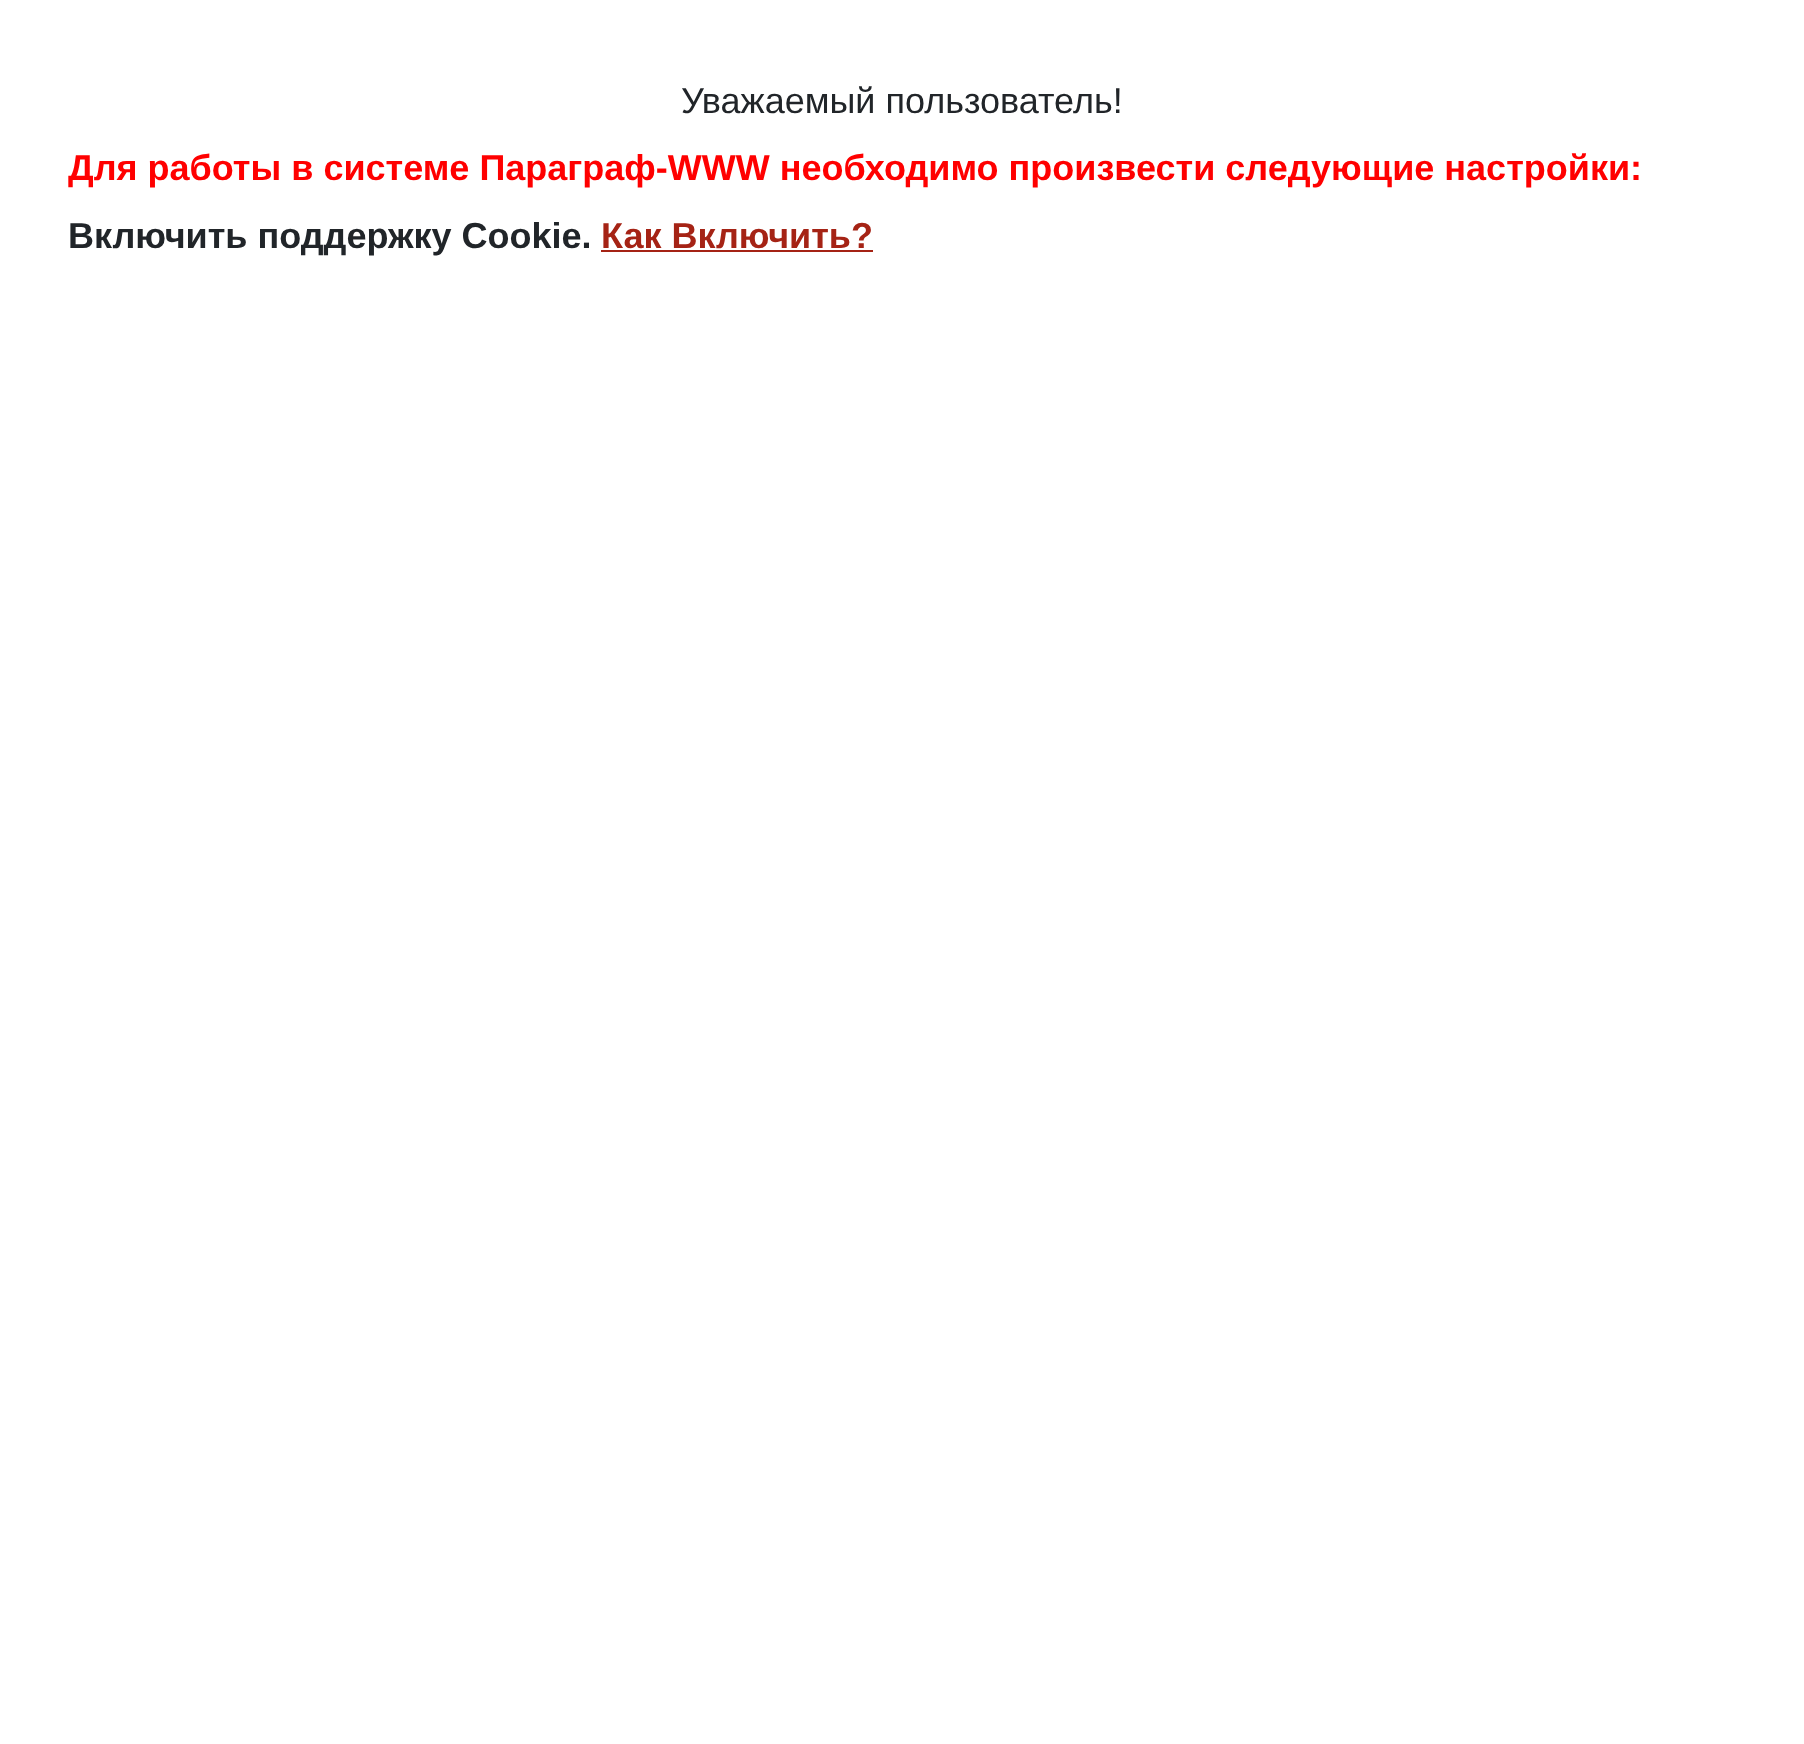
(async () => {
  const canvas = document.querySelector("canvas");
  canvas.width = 1804;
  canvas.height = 1744;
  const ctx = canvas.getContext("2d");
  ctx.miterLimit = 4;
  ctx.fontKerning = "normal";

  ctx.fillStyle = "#ffffff";
  ctx.fillRect(0, 0, 1804, 1744);
  ctx.fillStyle = "#a52315";
  ctx.fillRect(601, 250, 272, 2);
  ctx.font = "36px Liberation Sans";
  ctx.fillStyle = "#212529";
  ctx.fillText("Уважаемый пользователь!", 681, 113);
  ctx.font = "bold 36px Liberation Sans";
  ctx.fillStyle = "#ff0000";
  ctx.fillText("Для работы в системе Параграф-WWW необходимо произвести следующие настройки:", 68, 180);
  ctx.fillStyle = "#212529";
  ctx.fillText("Включить поддержку Cookie.", 68, 248);
  ctx.fillStyle = "#a52315";
  ctx.fillText("Как Включить?", 601, 248);
})();
